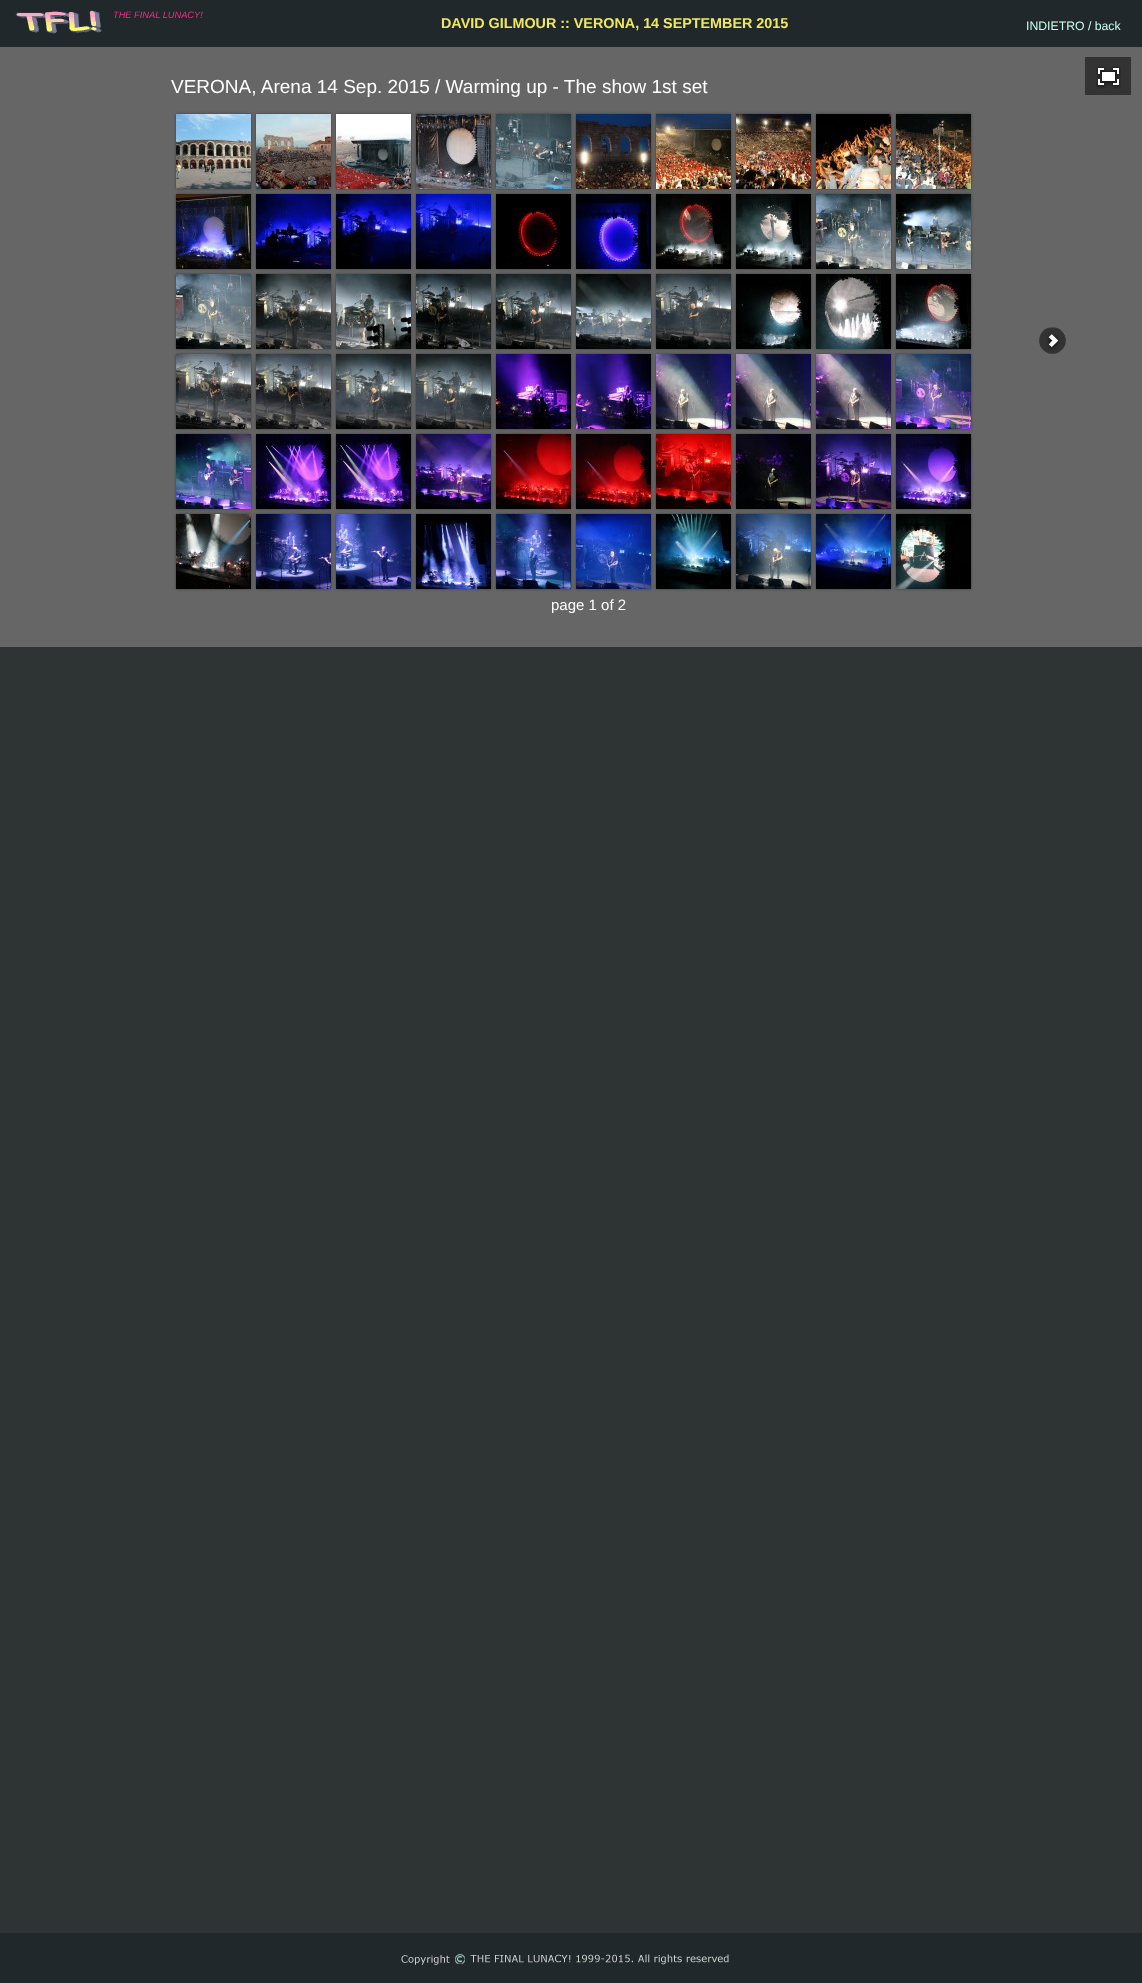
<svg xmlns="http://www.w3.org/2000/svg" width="1142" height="1983">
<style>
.a{font:italic 9.25px Liberation Sans;fill:#f42b8a}
.b{font:bold 14.35px Liberation Sans;fill:#efe85f}
.c{font:12.25px Liberation Sans;fill:#cdffec}
.d{font:19px Liberation Sans;fill:#fff}
.e{font:15px Liberation Sans;fill:#fff}
</style>
<rect width="100%" height="100%" fill="#2e3334"/>
<path fill="#20282b" d="M0 0h1142v47H0z"/>
<image href="1.png" x="15" y="10" width="87" height="24"/>
<path fill="#666" d="M0 47h1142v600H0z"/>
<path fill="#333" d="M1085 57h46v38H1085z"/>
<image href="2.png" x="1096" y="66" width="25" height="23"/>
<path fill="#00000066" filter="blur(1.5px)" d="M176 114h75v75H176z"/>
<path fill="#00000066" filter="blur(1.5px)" d="M256 114h75v75H256z"/>
<path fill="#00000066" filter="blur(1.5px)" d="M176 194h75v75H176z"/>
<path fill="#00000066" filter="blur(1.5px)" d="M256 194h75v75H256z"/>
<image href="3.png" x="176" y="114" width="75" height="75"/>
<path fill="#00000066" filter="blur(1.5px)" d="M336 114h75v75H336z"/>
<path fill="#00000066" filter="blur(1.5px)" d="M336 194h75v75H336z"/>
<image href="4.png" x="256" y="114" width="75" height="75"/>
<path fill="#00000066" filter="blur(1.5px)" d="M416 114h75v75H416z"/>
<path fill="#00000066" filter="blur(1.5px)" d="M416 194h75v75H416z"/>
<image href="5.png" x="336" y="114" width="75" height="75"/>
<path fill="#00000066" filter="blur(1.5px)" d="M496 114h75v75H496z"/>
<path fill="#00000066" filter="blur(1.5px)" d="M496 194h75v75H496z"/>
<image href="6.png" x="416" y="114" width="75" height="75"/>
<path fill="#00000066" filter="blur(1.5px)" d="M576 114h75v75H576z"/>
<path fill="#00000066" filter="blur(1.5px)" d="M576 194h75v75H576z"/>
<image href="7.png" x="496" y="114" width="75" height="75"/>
<path fill="#00000066" filter="blur(1.5px)" d="M656 114h75v75H656z"/>
<path fill="#00000066" filter="blur(1.5px)" d="M656 194h75v75H656z"/>
<image href="8.png" x="576" y="114" width="75" height="75"/>
<path fill="#00000066" filter="blur(1.5px)" d="M736 114h75v75H736z"/>
<path fill="#00000066" filter="blur(1.5px)" d="M736 194h75v75H736z"/>
<image href="9.png" x="656" y="114" width="75" height="75"/>
<path fill="#00000066" filter="blur(1.5px)" d="M816 114h75v75H816z"/>
<path fill="#00000066" filter="blur(1.5px)" d="M816 194h75v75H816z"/>
<image href="10.png" x="736" y="114" width="75" height="75"/>
<path fill="#00000066" filter="blur(1.5px)" d="M896 114h75v75H896z"/>
<path fill="#00000066" filter="blur(1.5px)" d="M896 194h75v75H896z"/>
<image href="11.png" x="816" y="114" width="75" height="75"/>
<image href="12.png" x="896" y="114" width="75" height="75"/>
<path fill="#00000066" filter="blur(1.5px)" d="M176 274h75v75H176z"/>
<path fill="#00000066" filter="blur(1.5px)" d="M256 274h75v75H256z"/>
<image href="13.png" x="176" y="194" width="75" height="75"/>
<path fill="#00000066" filter="blur(1.5px)" d="M336 274h75v75H336z"/>
<image href="14.png" x="256" y="194" width="75" height="75"/>
<path fill="#00000066" filter="blur(1.5px)" d="M416 274h75v75H416z"/>
<image href="15.png" x="336" y="194" width="75" height="75"/>
<path fill="#00000066" filter="blur(1.5px)" d="M496 274h75v75H496z"/>
<image href="16.png" x="416" y="194" width="75" height="75"/>
<path fill="#00000066" filter="blur(1.5px)" d="M576 274h75v75H576z"/>
<image href="17.png" x="496" y="194" width="75" height="75"/>
<path fill="#00000066" filter="blur(1.5px)" d="M656 274h75v75H656z"/>
<image href="18.png" x="576" y="194" width="75" height="75"/>
<path fill="#00000066" filter="blur(1.5px)" d="M736 274h75v75H736z"/>
<image href="19.png" x="656" y="194" width="75" height="75"/>
<path fill="#00000066" filter="blur(1.5px)" d="M816 274h75v75H816z"/>
<image href="20.png" x="736" y="194" width="75" height="75"/>
<path fill="#00000066" filter="blur(1.5px)" d="M896 274h75v75H896z"/>
<image href="21.png" x="816" y="194" width="75" height="75"/>
<image href="22.png" x="896" y="194" width="75" height="75"/>
<path fill="#00000066" filter="blur(1.5px)" d="M176 354h75v75H176z"/>
<path fill="#00000066" filter="blur(1.5px)" d="M256 354h75v75H256z"/>
<image href="23.png" x="176" y="274" width="75" height="75"/>
<path fill="#00000066" filter="blur(1.5px)" d="M336 354h75v75H336z"/>
<image href="24.png" x="256" y="274" width="75" height="75"/>
<path fill="#00000066" filter="blur(1.5px)" d="M416 354h75v75H416z"/>
<image href="25.png" x="336" y="274" width="75" height="75"/>
<path fill="#00000066" filter="blur(1.5px)" d="M496 354h75v75H496z"/>
<image href="26.png" x="416" y="274" width="75" height="75"/>
<path fill="#00000066" filter="blur(1.5px)" d="M576 354h75v75H576z"/>
<image href="27.png" x="496" y="274" width="75" height="75"/>
<path fill="#00000066" filter="blur(1.5px)" d="M656 354h75v75H656z"/>
<image href="28.png" x="576" y="274" width="75" height="75"/>
<path fill="#00000066" filter="blur(1.5px)" d="M736 354h75v75H736z"/>
<image href="29.png" x="656" y="274" width="75" height="75"/>
<path fill="#00000066" filter="blur(1.5px)" d="M816 354h75v75H816z"/>
<image href="30.png" x="736" y="274" width="75" height="75"/>
<path fill="#00000066" filter="blur(1.5px)" d="M896 354h75v75H896z"/>
<image href="31.png" x="816" y="274" width="75" height="75"/>
<image href="32.png" x="896" y="274" width="75" height="75"/>
<path fill="#00000066" filter="blur(1.5px)" d="M176 434h75v75H176z"/>
<path fill="#00000066" filter="blur(1.5px)" d="M256 434h75v75H256z"/>
<image href="33.png" x="176" y="354" width="75" height="75"/>
<path fill="#00000066" filter="blur(1.5px)" d="M336 434h75v75H336z"/>
<image href="34.png" x="256" y="354" width="75" height="75"/>
<path fill="#00000066" filter="blur(1.5px)" d="M416 434h75v75H416z"/>
<image href="35.png" x="336" y="354" width="75" height="75"/>
<path fill="#00000066" filter="blur(1.5px)" d="M496 434h75v75H496z"/>
<image href="36.png" x="416" y="354" width="75" height="75"/>
<path fill="#00000066" filter="blur(1.5px)" d="M576 434h75v75H576z"/>
<image href="37.png" x="496" y="354" width="75" height="75"/>
<path fill="#00000066" filter="blur(1.5px)" d="M656 434h75v75H656z"/>
<image href="38.png" x="576" y="354" width="75" height="75"/>
<path fill="#00000066" filter="blur(1.5px)" d="M736 434h75v75H736z"/>
<image href="39.png" x="656" y="354" width="75" height="75"/>
<path fill="#00000066" filter="blur(1.5px)" d="M816 434h75v75H816z"/>
<image href="40.png" x="736" y="354" width="75" height="75"/>
<path fill="#00000066" filter="blur(1.5px)" d="M896 434h75v75H896z"/>
<image href="41.png" x="816" y="354" width="75" height="75"/>
<image href="42.png" x="896" y="354" width="75" height="75"/>
<path fill="#00000066" filter="blur(1.5px)" d="M176 514h75v75H176z"/>
<path fill="#00000066" filter="blur(1.5px)" d="M256 514h75v75H256z"/>
<image href="43.png" x="176" y="434" width="75" height="75"/>
<path fill="#00000066" filter="blur(1.5px)" d="M336 514h75v75H336z"/>
<image href="44.png" x="256" y="434" width="75" height="75"/>
<path fill="#00000066" filter="blur(1.5px)" d="M416 514h75v75H416z"/>
<image href="45.png" x="336" y="434" width="75" height="75"/>
<path fill="#00000066" filter="blur(1.5px)" d="M496 514h75v75H496z"/>
<image href="46.png" x="416" y="434" width="75" height="75"/>
<path fill="#00000066" filter="blur(1.5px)" d="M576 514h75v75H576z"/>
<image href="47.png" x="496" y="434" width="75" height="75"/>
<path fill="#00000066" filter="blur(1.5px)" d="M656 514h75v75H656z"/>
<image href="48.png" x="576" y="434" width="75" height="75"/>
<path fill="#00000066" filter="blur(1.5px)" d="M736 514h75v75H736z"/>
<image href="49.png" x="656" y="434" width="75" height="75"/>
<path fill="#00000066" filter="blur(1.5px)" d="M816 514h75v75H816z"/>
<image href="50.png" x="736" y="434" width="75" height="75"/>
<path fill="#00000066" filter="blur(1.5px)" d="M896 514h75v75H896z"/>
<image href="51.png" x="816" y="434" width="75" height="75"/>
<image href="52.png" x="896" y="434" width="75" height="75"/>
<image href="53.png" x="176" y="514" width="75" height="75"/>
<image href="54.png" x="256" y="514" width="75" height="75"/>
<image href="55.png" x="336" y="514" width="75" height="75"/>
<image href="56.png" x="416" y="514" width="75" height="75"/>
<image href="57.png" x="496" y="514" width="75" height="75"/>
<image href="58.png" x="576" y="514" width="75" height="75"/>
<image href="59.png" x="656" y="514" width="75" height="75"/>
<image href="60.png" x="736" y="514" width="75" height="75"/>
<image href="61.png" x="816" y="514" width="75" height="75"/>
<image href="62.png" x="896" y="514" width="75" height="75"/>
<image href="63.png" x="1039" y="327" width="27" height="27"/>
<path fill="#20282b" d="M0 1933h1142v50H0z"/>
<image href="64.png" x="401" y="1954" width="328" height="11"/>
<text class="a" x="113" y="18">THE FINAL LUNACY!</text>
<text class="b" x="441" y="28">DAVID GILMOUR :: VERONA, 14 SEPTEMBER 2015</text>
<text class="c" x="1026" y="30">INDIETRO / back</text>
<text class="d" x="171" y="93">VERONA, Arena 14 Sep. 2015 / Warming up - The show 1st set</text>
<text class="e" x="551" y="610">page 1 of 2</text>
</svg>
